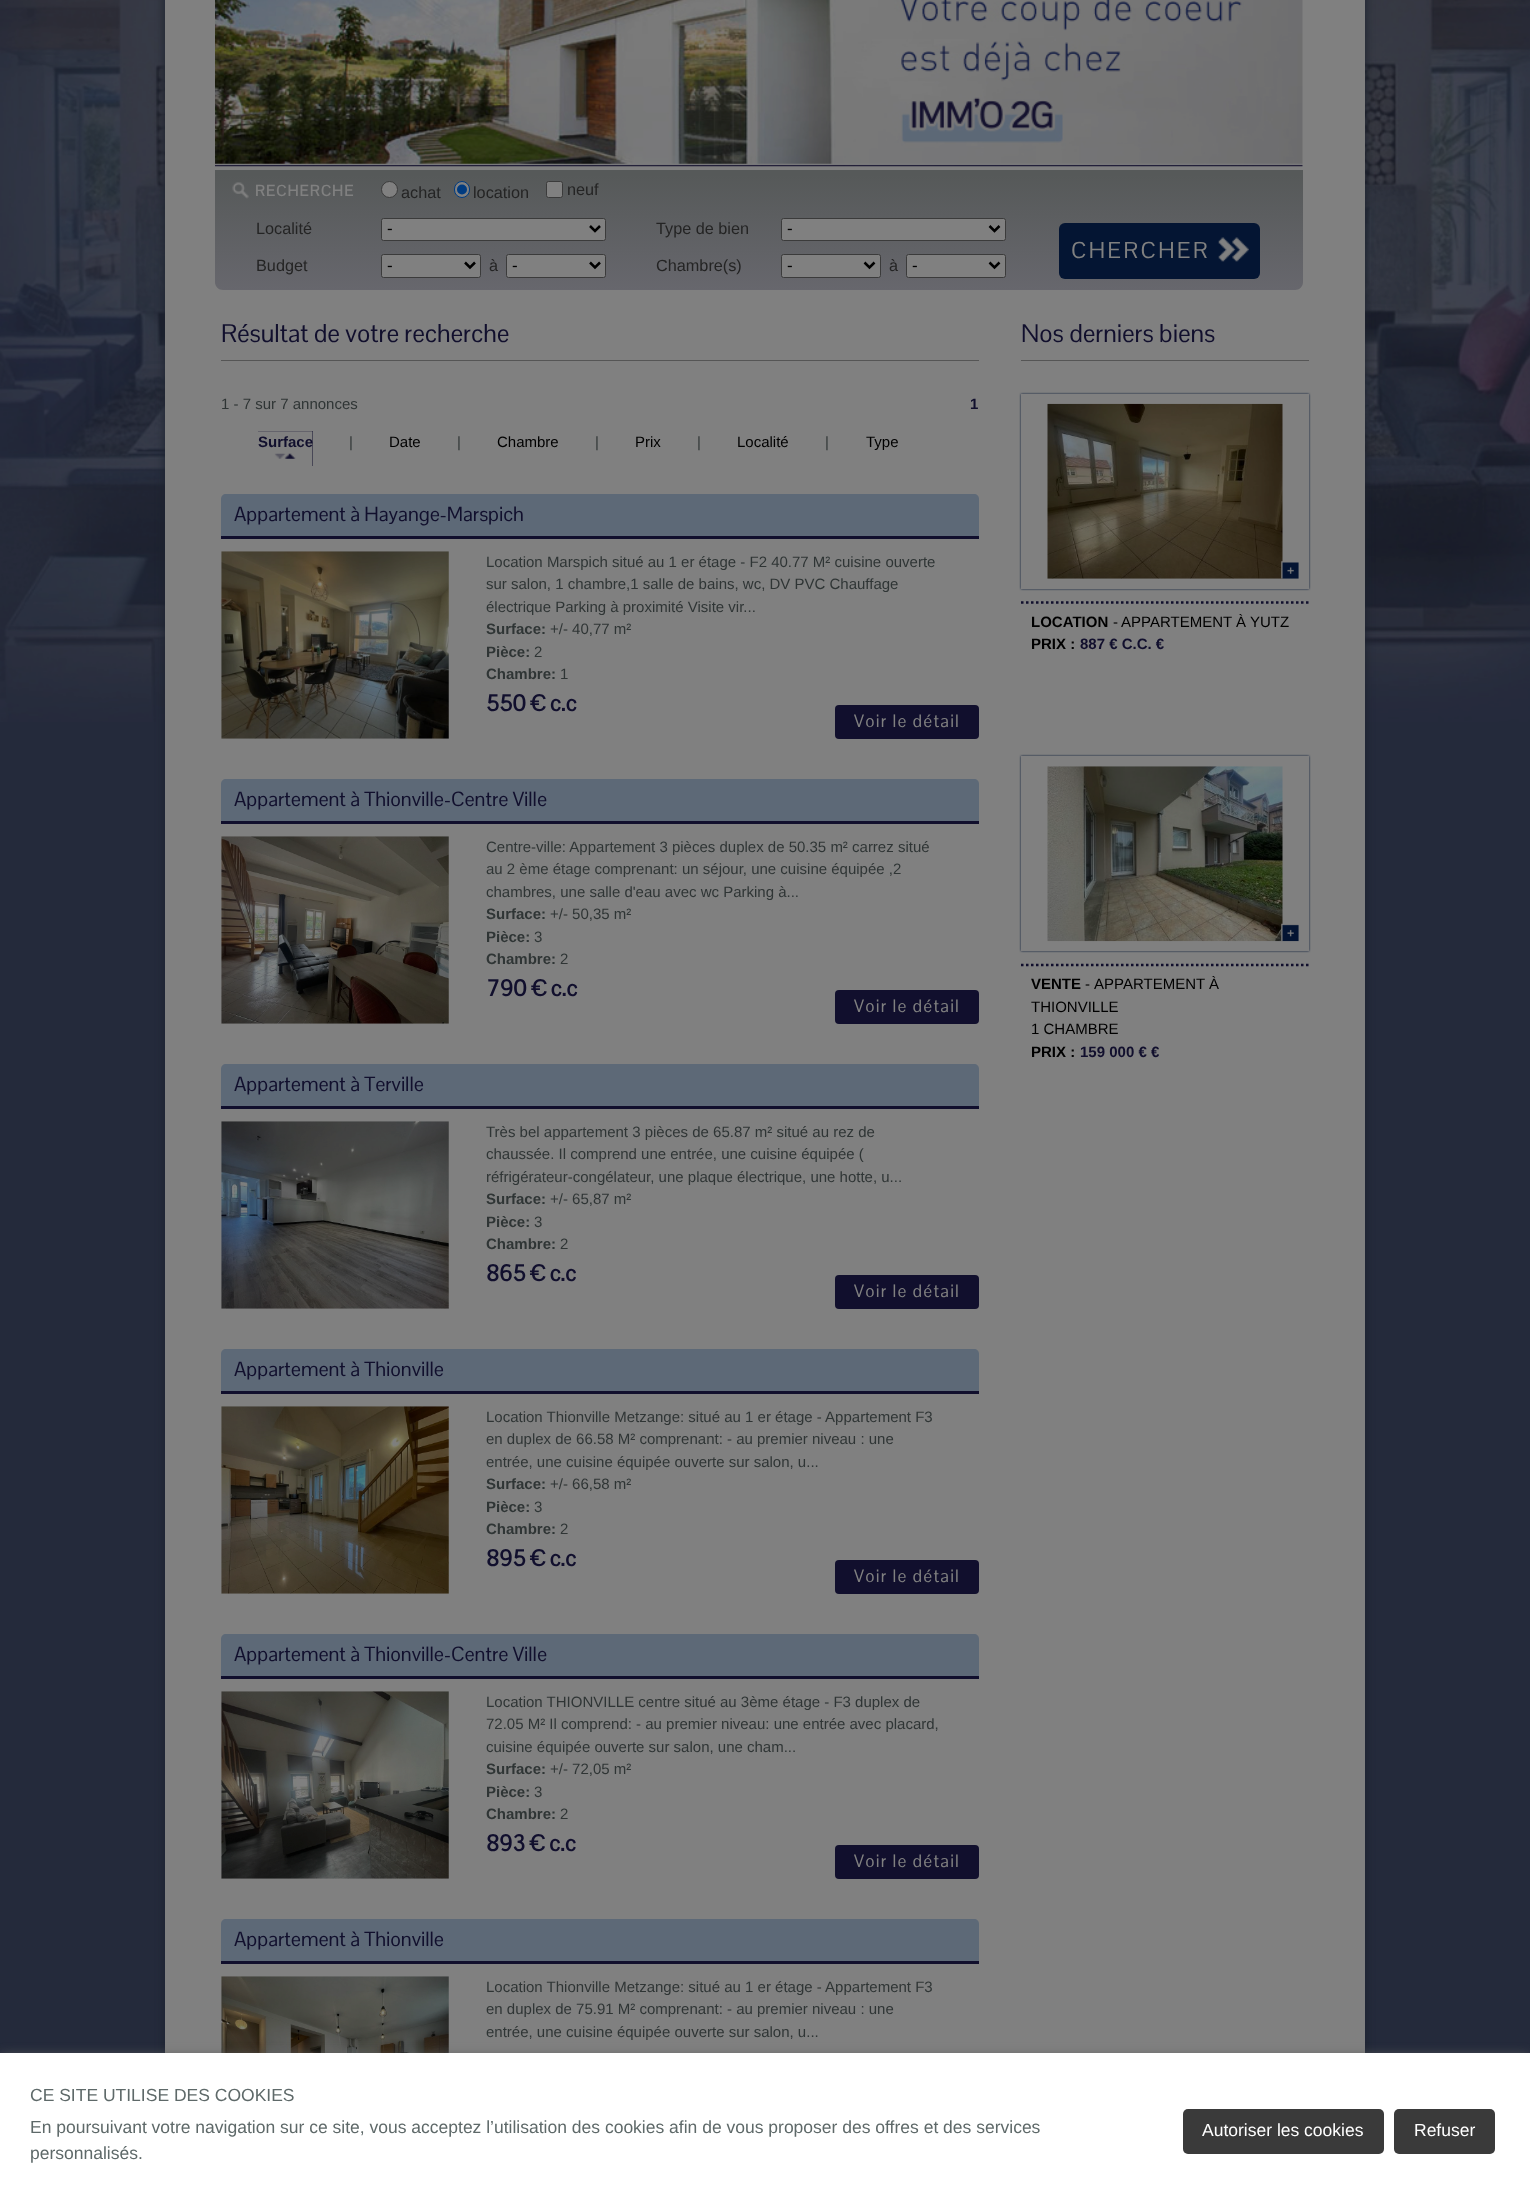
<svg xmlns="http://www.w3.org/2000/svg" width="1530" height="2208">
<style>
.a{font:16.25px Liberation Sans;fill:#242424}
.b{font:17px Liberation Sans;fill:#000}
.c{font:22.5px Pontano Sans;letter-spacing:2.5px;fill:#808080}
.d{font:bold 15px Pontano Sans;letter-spacing:1.25px;fill:#808080}
.e{font:25px Pontano Sans;fill:#110f2d}
.f{font:15px Liberation Sans;fill:#2f3535}
.g{font:bold 15px Liberation Sans;fill:#110f2d}
.h{font:15px Liberation Sans;fill:#000}
.i{font:20px Pontano Sans;fill:#110f2d}
.j{font:bold 15px Liberation Sans;fill:#2f3535}
.k{font:bold 22.5px Pontano Sans;fill:#110f2d}
.l{font:17.5px Pontano Sans;letter-spacing:1.25px;fill:#808080}
.m{font:bold 15px Liberation Sans;fill:#000}
.n{font:17.5px Liberation Sans;fill:#5e6969}
.o{font:17.5px Liberation Sans;fill:#fff}
</style>
<defs>
<linearGradient id="g1" gradientUnits="userSpaceOnUse" x1="759" y1="170" x2="759" y2="290"><stop offset="0.04" stop-color="#565959"/><stop offset="1" stop-color="#67676d"/></linearGradient>
</defs>
<rect width="100%" height="100%" fill="#242a3b"/>
<image href="1.png" x="0" y="0" width="1530" height="722"/>
<rect fill="#1a202d" filter="blur(5px)" x="165" y="-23" width="1200" height="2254" rx="8"/>
<path fill="#808080" d="M165 0h1200v2053H165z"/>
<image href="2.png" x="215" y="0" width="1088" height="167"/>
<path fill="url(#g1)" d="M215 170h1088v112c0 4.5-3.5 8-8 8h-1072c-4.5 0-8-3.5-8-8z"/>
<circle fill="#808080" stroke="#3b3b3b" cx="389.5" cy="189.5" r="8"/>
<rect fill="#808080" stroke="#003b80" x="454.5" y="181.5" width="15" height="16" rx="7.5"/>
<circle fill="#003b80" cx="462" cy="189.5" r="5"/>
<rect fill="#808080" stroke="#3b3b3b" x="546.5" y="181.5" width="16" height="16" rx="2"/>
<rect fill="#808080" stroke="#3b3b3b" x="381.5" y="218.5" width="224" height="22" rx="2"/>
<path fill="none" stroke="#000" stroke-width="2.5" d="M590 226l5 5l5-5"/>
<rect fill="#808080" stroke="#3b3b3b" x="781.5" y="218.5" width="224" height="22" rx="2"/>
<path fill="none" stroke="#000" stroke-width="2.5" d="M989.5 226l5 5l5-5"/>
<rect fill="#041533" x="1059" y="223" width="201" height="56" rx="6"/>
<image href="3.png" x="1218" y="237" width="31" height="25"/>
<rect fill="#808080" stroke="#3b3b3b" x="381.5" y="254.5" width="99" height="23" rx="2"/>
<path fill="none" stroke="#000" stroke-width="2.5" d="M465 262.5l5 5l5-5"/>
<rect fill="#808080" stroke="#3b3b3b" x="506.5" y="254.5" width="99" height="23" rx="2"/>
<path fill="none" stroke="#000" stroke-width="2.5" d="M590 262.5l5 5l5-5"/>
<rect fill="#808080" stroke="#3b3b3b" x="781.5" y="254.5" width="99" height="23" rx="2"/>
<path fill="none" stroke="#000" stroke-width="2.5" d="M864.5 262.5l5 5l5-5"/>
<rect fill="#808080" stroke="#3b3b3b" x="906.5" y="254.5" width="99" height="23" rx="2"/>
<path fill="none" stroke="#000" stroke-width="2.5" d="M989.5 262.5l5 5l5-5"/>
<image href="4.png" x="232" y="182" width="17" height="17"/>
<path fill="#555" d="M221 360h758v1H221z"/>
<path fill="#110f2d" d="M258 431h55v35H258z"/>
<image href="5.png" x="258" y="431" width="55" height="35"/>
<path fill="#5d6977" d="M226 494h748c3 0 5 2 5 5v40h-758v-40c0-3 2-5 5-5z"/>
<path fill="#110f2d" d="M221 536h758v3H221z"/>
<image href="6.png" x="221" y="551" width="228" height="188"/>
<rect fill="#110f2d" x="835" y="705" width="144" height="34" rx="4"/>
<path fill="#5d6977" d="M226 779h748c3 0 5 2 5 5v40h-758v-40c0-3 2-5 5-5z"/>
<path fill="#110f2d" d="M221 821h758v3H221z"/>
<image href="7.png" x="221" y="836" width="228" height="188"/>
<rect fill="#110f2d" x="835" y="990" width="144" height="34" rx="4"/>
<path fill="#5d6977" d="M226 1064h748c3 0 5 2 5 5v40h-758v-40c0-3 2-5 5-5z"/>
<path fill="#110f2d" d="M221 1106h758v3H221z"/>
<image href="8.png" x="221" y="1121" width="228" height="188"/>
<rect fill="#110f2d" x="835" y="1275" width="144" height="34" rx="4"/>
<path fill="#5d6977" d="M226 1349h748c3 0 5 2 5 5v40h-758v-40c0-3 2-5 5-5z"/>
<path fill="#110f2d" d="M221 1391h758v3H221z"/>
<image href="9.png" x="221" y="1406" width="228" height="188"/>
<rect fill="#110f2d" x="835" y="1560" width="144" height="34" rx="4"/>
<path fill="#5d6977" d="M226 1634h748c3 0 5 2 5 5v40h-758v-40c0-3 2-5 5-5z"/>
<path fill="#110f2d" d="M221 1676h758v3H221z"/>
<image href="10.png" x="221" y="1691" width="228" height="188"/>
<rect fill="#110f2d" x="835" y="1845" width="144" height="34" rx="4"/>
<path fill="#5d6977" d="M226 1919h748c3 0 5 2 5 5v40h-758v-40c0-3 2-5 5-5z"/>
<path fill="#110f2d" d="M221 1961h758v3H221z"/>
<image href="11.png" x="221" y="1976" width="228" height="77"/>
<path fill="#555" d="M1021 360h288v1H1021z"/>
<path fill="#041533" filter="blur(1px)" d="M1021 394h288v195H1021z"/>
<path fill="#808080" d="M1021 394h288v195H1021z"/>
<image href="12.png" x="1047" y="403" width="236" height="176"/>
<image href="13.png" x="1281" y="561" width="18" height="18"/>
<path fill="none" stroke="#110f2d" stroke-width="2.5" stroke-dasharray="2.5 2.5" d="M1021 602.5h288"/>
<path fill="#041533" filter="blur(1px)" d="M1021 756h288v195H1021z"/>
<path fill="#808080" d="M1021 756h288v195H1021z"/>
<image href="14.png" x="1047" y="766" width="236" height="176"/>
<image href="15.png" x="1281" y="923" width="18" height="19"/>
<path fill="none" stroke="#110f2d" stroke-width="2.5" stroke-dasharray="2.5 2.5" d="M1021 965h288"/>
<path fill="#606060" filter="blur(6px)" d="M0 2056h1530v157H0z"/>
<path fill="#fff" d="M0 2053h1530v155H0z"/>
<rect fill="#3a3a3a" x="1183" y="2109" width="201" height="45" rx="5"/>
<rect fill="#3a3a3a" x="1394" y="2109" width="101" height="45" rx="5"/>
<text class="a" x="401" y="198">achat</text>
<text class="a" x="473" y="198">location</text>
<text class="a" x="567" y="195">neuf</text>
<text class="a" x="256" y="234">Localité</text>
<text class="b" x="387" y="234">-</text>
<text class="a" x="656" y="234">Type de bien</text>
<text class="b" x="787" y="234">-</text>
<text class="c" x="1071" y="258">CHERCHER</text>
<text class="a" x="256" y="271">Budget</text>
<text class="b" x="387" y="271">-</text>
<text class="a" x="489" y="271">à</text>
<text class="b" x="512" y="271">-</text>
<text class="a" x="656" y="271">Chambre(s)</text>
<text class="b" x="787" y="271">-</text>
<text class="a" x="889" y="271">à</text>
<text class="b" x="912" y="271">-</text>
<text class="d" x="255" y="196">RECHERCHE</text>
<text class="e" x="221" y="342">Résultat de votre recherche</text>
<text class="f" x="221" y="409">1 - 7 sur 7 annonces</text>
<text class="g" x="970" y="409">1</text>
<text class="g" x="258" y="447">Surface</text>
<text class="f" x="349" y="447">|</text>
<text class="h" x="389" y="447">Date</text>
<text class="f" x="457" y="447">|</text>
<text class="h" x="497" y="447">Chambre</text>
<text class="f" x="595" y="447">|</text>
<text class="h" x="635" y="447">Prix</text>
<text class="f" x="697" y="447">|</text>
<text class="h" x="737" y="447">Localité</text>
<text class="f" x="825" y="447">|</text>
<text class="h" x="866" y="447">Type</text>
<text class="i" x="234" y="521">Appartement à Hayange-Marspich</text>
<text class="f" x="486" y="567">Location Marspich situé au 1 er étage - F2 40.77 M² cuisine ouverte</text>
<text class="f" x="486" y="589">sur salon, 1 chambre,1 salle de bains, wc, DV PVC Chauffage</text>
<text class="f" x="486" y="612">électrique Parking à proximité Visite vir...</text>
<text class="j" x="486" y="634">Surface:</text>
<text class="f" x="550" y="634">+/- 40,77 m²</text>
<text class="j" x="486" y="657">Pièce:</text>
<text class="f" x="534" y="657">2</text>
<text class="j" x="486" y="679">Chambre:</text>
<text class="f" x="560" y="679">1</text>
<text class="k" x="486" y="711">550 € c.c</text>
<text class="l" x="854" y="727">Voir le détail</text>
<text class="i" x="234" y="806">Appartement à Thionville-Centre Ville</text>
<text class="f" x="486" y="852">Centre-ville: Appartement 3 pièces duplex de 50.35 m² carrez situé</text>
<text class="f" x="486" y="874">au 2 ème étage comprenant: un séjour, une cuisine équipée ,2</text>
<text class="f" x="486" y="897">chambres, une salle d'eau avec wc Parking à...</text>
<text class="j" x="486" y="919">Surface:</text>
<text class="f" x="550" y="919">+/- 50,35 m²</text>
<text class="j" x="486" y="942">Pièce:</text>
<text class="f" x="534" y="942">3</text>
<text class="j" x="486" y="964">Chambre:</text>
<text class="f" x="560" y="964">2</text>
<text class="k" x="486" y="996">790 € c.c</text>
<text class="l" x="854" y="1012">Voir le détail</text>
<text class="i" x="234" y="1091">Appartement à Terville</text>
<text class="f" x="486" y="1137">Très bel appartement 3 pièces de 65.87 m² situé au rez de</text>
<text class="f" x="486" y="1159">chaussée. Il comprend une entrée, une cuisine équipée (</text>
<text class="f" x="486" y="1182">réfrigérateur-congélateur, une plaque électrique, une hotte, u...</text>
<text class="j" x="486" y="1204">Surface:</text>
<text class="f" x="550" y="1204">+/- 65,87 m²</text>
<text class="j" x="486" y="1227">Pièce:</text>
<text class="f" x="534" y="1227">3</text>
<text class="j" x="486" y="1249">Chambre:</text>
<text class="f" x="560" y="1249">2</text>
<text class="k" x="486" y="1281">865 € c.c</text>
<text class="l" x="854" y="1297">Voir le détail</text>
<text class="i" x="234" y="1376">Appartement à Thionville</text>
<text class="f" x="486" y="1422">Location Thionville Metzange: situé au 1 er étage - Appartement F3</text>
<text class="f" x="486" y="1444">en duplex de 66.58 M² comprenant: - au premier niveau : une</text>
<text class="f" x="486" y="1467">entrée, une cuisine équipée ouverte sur salon, u...</text>
<text class="j" x="486" y="1489">Surface:</text>
<text class="f" x="550" y="1489">+/- 66,58 m²</text>
<text class="j" x="486" y="1512">Pièce:</text>
<text class="f" x="534" y="1512">3</text>
<text class="j" x="486" y="1534">Chambre:</text>
<text class="f" x="560" y="1534">2</text>
<text class="k" x="486" y="1566">895 € c.c</text>
<text class="l" x="854" y="1582">Voir le détail</text>
<text class="i" x="234" y="1661">Appartement à Thionville-Centre Ville</text>
<text class="f" x="486" y="1707">Location THIONVILLE centre situé au 3ème étage - F3 duplex de</text>
<text class="f" x="486" y="1729">72.05 M² Il comprend: - au premier niveau: une entrée avec placard,</text>
<text class="f" x="486" y="1752">cuisine équipée ouverte sur salon, une cham...</text>
<text class="j" x="486" y="1774">Surface:</text>
<text class="f" x="550" y="1774">+/- 72,05 m²</text>
<text class="j" x="486" y="1797">Pièce:</text>
<text class="f" x="534" y="1797">3</text>
<text class="j" x="486" y="1819">Chambre:</text>
<text class="f" x="560" y="1819">2</text>
<text class="k" x="486" y="1851">893 € c.c</text>
<text class="l" x="854" y="1867">Voir le détail</text>
<text class="i" x="234" y="1946">Appartement à Thionville</text>
<text class="f" x="486" y="1992">Location Thionville Metzange: situé au 1 er étage - Appartement F3</text>
<text class="f" x="486" y="2014">en duplex de 75.91 M² comprenant: - au premier niveau : une</text>
<text class="f" x="486" y="2037">entrée, une cuisine équipée ouverte sur salon, u...</text>
<text class="e" x="1021" y="342">Nos derniers biens</text>
<text class="m" x="1031" y="627">LOCATION</text>
<text class="h" x="1113" y="627">-</text>
<text class="h" x="1121" y="627">APPARTEMENT À YUTZ</text>
<text class="m" x="1031" y="649">PRIX :</text>
<text class="g" x="1080" y="649">887 € C.C. €</text>
<text class="m" x="1031" y="989">VENTE</text>
<text class="h" x="1085" y="989">-</text>
<text class="h" x="1094" y="989">APPARTEMENT À</text>
<text class="h" x="1031" y="1012">THIONVILLE</text>
<text class="h" x="1031" y="1034">1 CHAMBRE</text>
<text class="m" x="1031" y="1057">PRIX :</text>
<text class="g" x="1080" y="1057">159 000 € €</text>
<text class="n" x="30" y="2101">CE SITE UTILISE DES COOKIES</text>
<text class="n" x="30" y="2133">En poursuivant votre navigation sur ce site, vous acceptez l’utilisation des cookies afin de vous proposer des offres et des services</text>
<text class="n" x="30" y="2159">personnalisés.</text>
<text class="o" x="1202" y="2136">Autoriser les cookies</text>
<text class="o" x="1414" y="2136">Refuser</text>
</svg>
